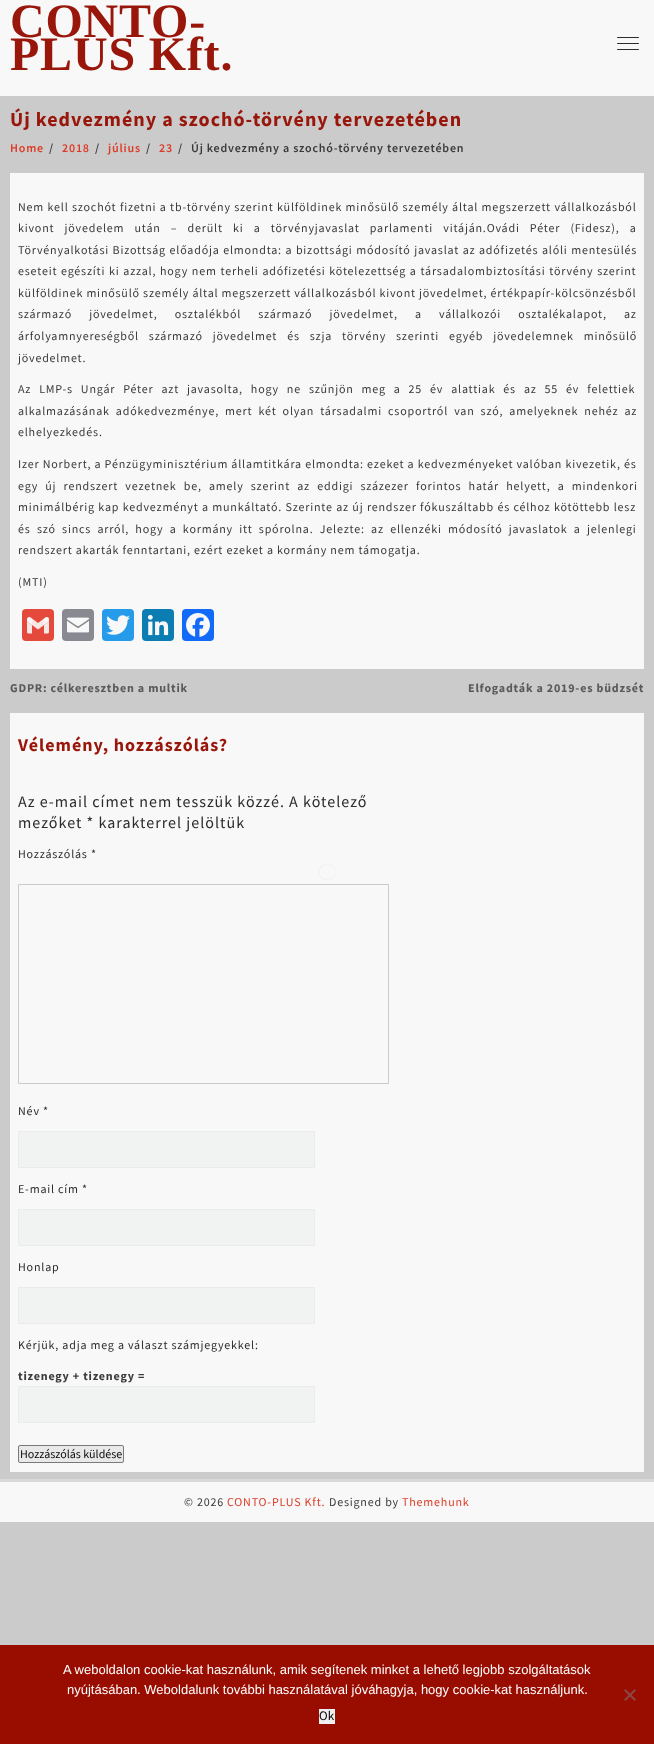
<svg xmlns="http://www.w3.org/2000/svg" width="654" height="1744">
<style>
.a{font:bold 48px Liberation Serif;letter-spacing:0.8px;fill:#99160b}
.b{font:bold 20px Source Sans Pro;letter-spacing:1px;fill:#99160b}
.c{font:600 12px Source Sans Pro;letter-spacing:0.8px;fill:#dd3b26}
.d{font:600 12px Source Sans Pro;letter-spacing:0.8px;fill:#3a3a3a}
.e{font:12px Source Sans Pro;letter-spacing:0.8px;fill:#3a3a3a}
.f{font:bold 12px Source Sans Pro;letter-spacing:0.8px;fill:#5a5a5a}
.g{font:bold 18px Source Sans Pro;letter-spacing:1px;fill:#99160b}
.h{font:16px Source Sans Pro;letter-spacing:1px;fill:#2c2c2c}
.i{font:12px Source Sans Pro;letter-spacing:0.8px;fill:#2c2c2c}
.j{font:bold 12px Source Sans Pro;letter-spacing:0.8px;fill:#3a3a3a}
.k{font:12px Source Sans Pro;fill:#0b0b0b}
.l{font:12px Source Sans Pro;letter-spacing:0.8px;fill:#dd3b26}
.m{font:13px Liberation Sans;fill:#fff}
.n{font:13px Source Sans Pro;fill:#000}
</style>
<rect width="100%" height="100%" fill="#cbcbcb"/>
<path fill="#f8f8f8" d="M0 0h654v96H0z"/>
<rect fill="#2c2c2c" x="617" y="37" width="22" height="1" rx="0.5"/>
<rect fill="#2c2c2c" x="617" y="43" width="22" height="1" rx="0.5"/>
<rect fill="#2c2c2c" x="617" y="49" width="22" height="1" rx="0.5"/>
<path fill="#f8f8f8" d="M10 173h634v496H10z"/>
<rect fill="#e5493c" x="22" y="609" width="32" height="32" rx="4"/>
<image href="1.png" x="27" y="617" width="22" height="17"/>
<rect fill="#898a91" x="62" y="609" width="32" height="32" rx="4"/>
<image href="2.png" x="67" y="617" width="22" height="16"/>
<rect fill="#269bea" x="102" y="609" width="32" height="32" rx="4"/>
<image href="3.png" x="106" y="615" width="24" height="20"/>
<rect fill="#0b7db3" x="142" y="609" width="32" height="32" rx="4"/>
<image href="4.png" x="147" y="614" width="22" height="22"/>
<rect fill="#126af8" x="182" y="609" width="32" height="32" rx="4"/>
<image href="5.png" x="186" y="613" width="24" height="24"/>
<path fill="#f8f8f8" d="M10 713h634v759H10z"/>
<path fill="none" stroke="#cbcbcb" d="M18.5 884.5h370v199H18.5z"/>
<path fill="#f1f2f2" stroke="#ebebeb" d="M18.5 1131.5h296v36H18.5z"/>
<path fill="#f1f2f2" stroke="#ebebeb" d="M18.5 1209.5h296v36H18.5z"/>
<path fill="#f1f2f2" stroke="#ebebeb" d="M18.5 1287.5h296v36H18.5z"/>
<path fill="#f1f2f2" stroke="#ebebeb" d="M18.5 1386.5h296v36H18.5z"/>
<rect fill="#e9e9e9" stroke="#797979" x="18.5" y="1445.5" width="105" height="17" rx="1.5"/>
<path fill="#d8d8d8" d="M0 1479h654v3H0z"/>
<path fill="#f8f8f8" d="M0 1482h654v40H0z"/>
<image href="6.png" x="318" y="863" width="17" height="17"/>
<path fill="#990c00" d="M0 1645h654v99H0z"/>
<path fill="#8d4640" d="M634.5 1689l1.5 1.5l-10.5 10.5l-1.5-1.5z"/>
<path fill="#8d4640" d="M624 1690.5l1.5-1.5l10.5 10.5l-1.5 1.5z"/>
<path fill="#efefef" d="M319 1709h16v15H319z"/>
<text class="a" x="10" y="37">CONTO-</text>
<text class="a" x="10" y="70">PLUS Kft.</text>
<text class="b" x="10" y="126">Új kedvezmény a szochó-törvény tervezetében</text>
<text class="c" x="10" y="152">Home</text>
<text class="d" x="49" y="152">/</text>
<text class="c" x="62" y="152">2018</text>
<text class="d" x="95" y="152">/</text>
<text class="c" x="108" y="152">július</text>
<text class="d" x="146" y="152">/</text>
<text class="c" x="159" y="152">23</text>
<text class="d" x="178" y="152">/</text>
<text class="d" x="191" y="152">Új kedvezmény a szochó-törvény tervezetében</text>
<text class="e" x="18" y="211" word-spacing="0.25">Nem kell szochót fizetni a tb-törvény szerint külföldinek minősülő személy által megszerzett vállalkozásból</text>
<text class="e" x="18" y="232" word-spacing="7">kivont jövedelem után – derült ki a törvényjavaslat parlamenti vitáján.Ovádi Péter (Fidesz), a</text>
<text class="e" x="18" y="254" word-spacing="0.4">Törvényalkotási Bizottság előadója elmondta: a bizottsági módosító javaslat az adófizetés alóli mentesülés</text>
<text class="e" x="18" y="275" word-spacing="0.6">eseteit egészíti ki azzal, hogy nem terheli adófizetési kötelezettség a társadalombiztosítási törvény szerint</text>
<text class="e" x="18" y="297">külföldinek minősülő személy által megszerzett vállalkozásból kivont jövedelmet, értékpapír-kölcsönzésből</text>
<text class="e" x="18" y="318" word-spacing="14">származó jövedelmet, osztalékból származó jövedelmet, a vállalkozói osztalékalapot, az</text>
<text class="e" x="18" y="340" word-spacing="6.75">árfolyamnyereségből származó jövedelmet és szja törvény szerinti egyéb jövedelemnek minősülő</text>
<text class="e" x="18" y="362">jövedelmet.</text>
<text class="e" x="18" y="393" word-spacing="4.75">Az LMP-s Ungár Péter azt javasolta, hogy ne szűnjön meg a 25 év alattiak és az 55 év felettiek</text>
<text class="e" x="18" y="415" word-spacing="2.9">alkalmazásának adókedvezménye, mert két olyan társadalmi csoportról van szó, amelyeknek nehéz az</text>
<text class="e" x="18" y="436">elhelyezkedés.</text>
<text class="e" x="18" y="468">Izer Norbert, a Pénzügyminisztérium államtitkára elmondta: ezeket a kedvezményeket valóban kivezetik, és</text>
<text class="e" x="18" y="490" word-spacing="4">egy új rendszert vezetnek be, amely szerint az eddigi százezer forintos határ helyett, a mindenkori</text>
<text class="e" x="18" y="511" word-spacing="0.25">minimálbérig kap kedvezményt a munkáltató. Szerinte az új rendszer fókuszáltabb és célhoz kötöttebb lesz</text>
<text class="e" x="18" y="533" word-spacing="3.1">és szó sincs arról, hogy a kormány itt spórolna. Jelezte: az ellenzéki módosító javaslatok a jelenlegi</text>
<text class="e" x="18" y="554">rendszert akarták fenntartani, ezért ezeket a kormány nem támogatja.</text>
<text class="e" x="18" y="586">(MTI)</text>
<text class="f" x="10" y="692">GDPR: célkeresztben a multik</text>
<text class="f" x="468" y="692">Elfogadták a 2019-es büdzsét</text>
<text class="g" x="18" y="751">Vélemény, hozzászólás?</text>
<text class="h" x="18" y="807">Az e-mail címet nem tesszük közzé. A kötelező</text>
<text class="h" x="18" y="828">mezőket * karakterrel jelöltük</text>
<text class="i" x="18" y="858">Hozzászólás *</text>
<text class="i" x="18" y="1115">Név *</text>
<text class="i" x="18" y="1193">E-mail cím *</text>
<text class="i" x="18" y="1271">Honlap</text>
<text class="i" x="18" y="1349">Kérjük, adja meg a választ számjegyekkel:</text>
<text class="j" x="18" y="1380">tizenegy + tizenegy =</text>
<text class="k" x="20" y="1458">Hozzászólás küldése</text>
<text class="e" x="184" y="1506">© 2026</text>
<text class="l" x="227" y="1506">CONTO-PLUS Kft.</text>
<text class="e" x="329" y="1506">Designed by</text>
<text class="l" x="402" y="1506">Themehunk</text>
<text class="m" x="63" y="1674">A weboldalon cookie-kat használunk, amik segítenek minket a lehető legjobb szolgáltatások</text>
<text class="m" x="67" y="1694">nyújtásában. Weboldalunk további használatával jóváhagyja, hogy cookie-kat használjunk.</text>
<text class="n" x="319" y="1720">Ok</text>
</svg>
